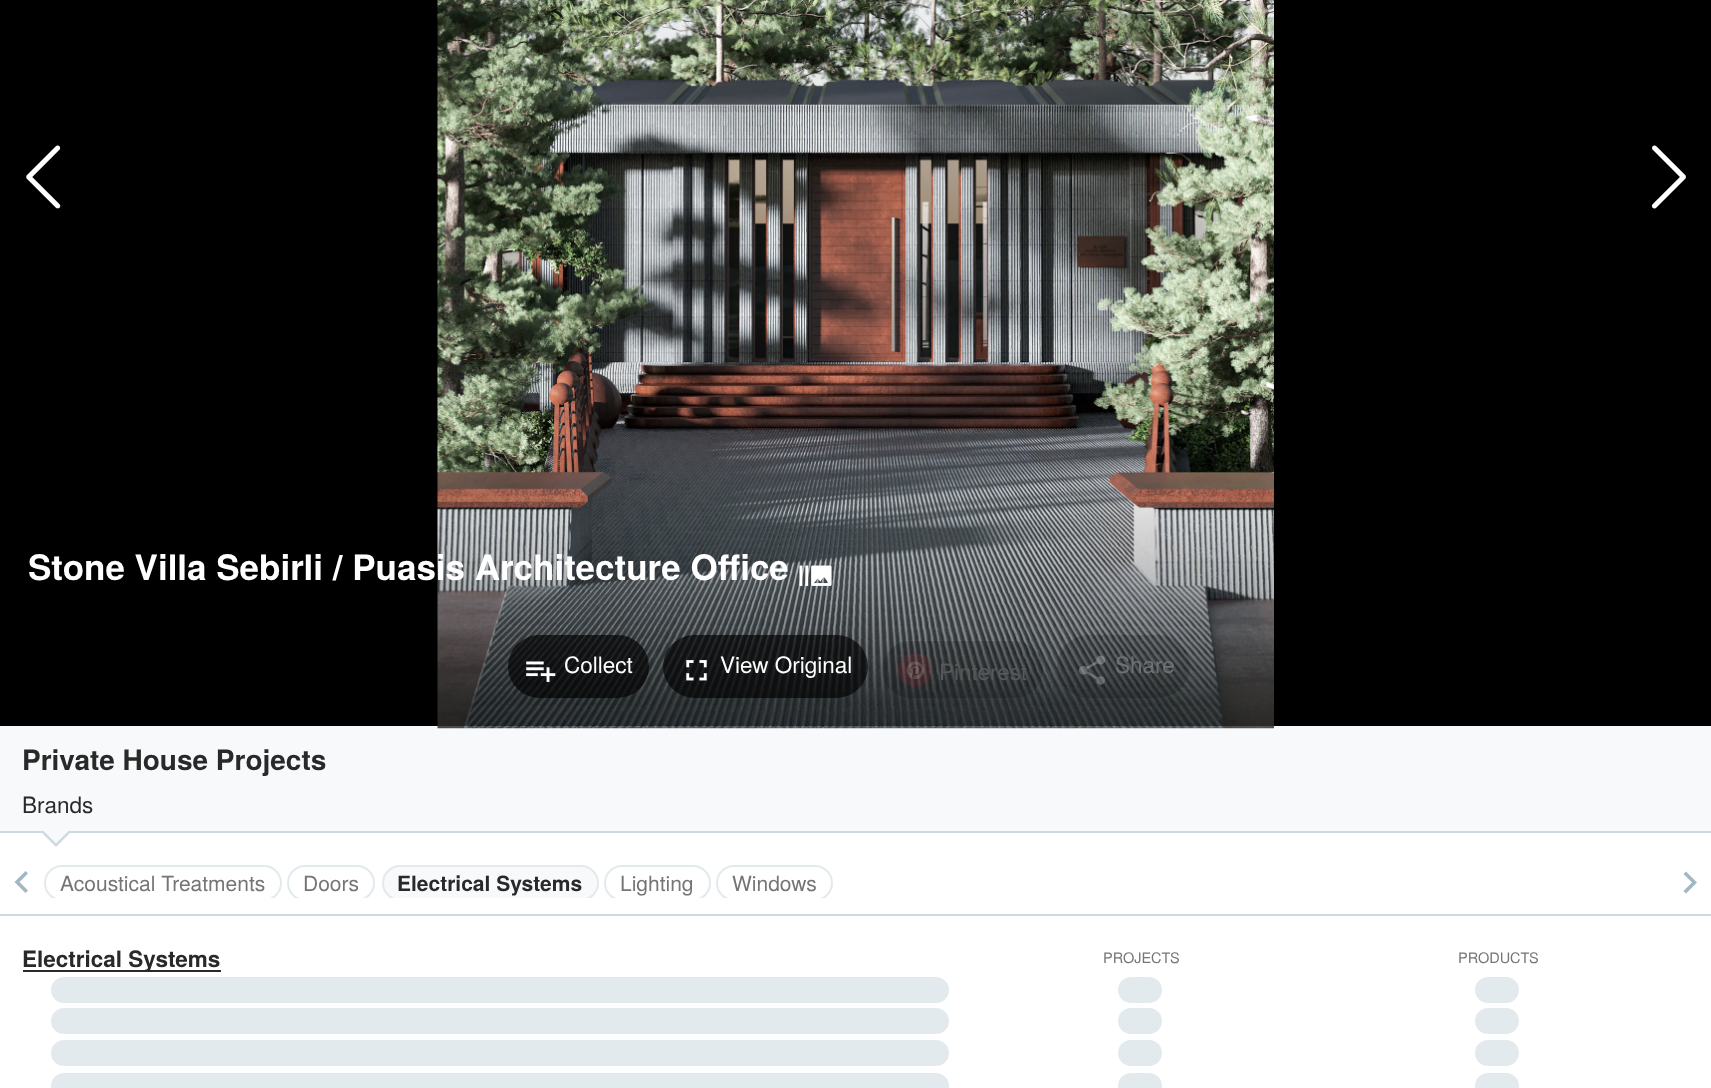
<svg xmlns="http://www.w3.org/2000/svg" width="1711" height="1088">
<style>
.a{font:bold 35px TeX Gyre Heros;fill:#fff}
.b{font:22.5px TeX Gyre Heros;fill:#fff}
.c{font:22.5px TeX Gyre Heros;fill:#55595a}
.d{font:22.5px TeX Gyre Heros;fill:#6f7274}
.e{font:bold 28px TeX Gyre Heros;fill:#292929}
.f{font:22.5px TeX Gyre Heros;fill:#292929}
.g{font:21px TeX Gyre Heros;fill:#757575}
.h{font:bold 21px TeX Gyre Heros;fill:#292929}
.i{font:bold 22.5px TeX Gyre Heros;fill:#292929}
.j{font:14.5px TeX Gyre Heros;fill:#757575}
</style>
<defs>
<linearGradient id="g1" gradientUnits="userSpaceOnUse" x1="856" y1="726" x2="856" y2="438"><stop offset="0" stop-color="#000" stop-opacity="0.5"/><stop offset="1" stop-color="#000" stop-opacity="0"/></linearGradient>
<clipPath id="clip1"><path d="M44 854h1624v44H44z"/></clipPath>
</defs>
<rect width="100%" height="100%" fill="#fff"/>
<path fill="#000" d="M0 0h1711v726H0z"/>
<path fill="#f7f9fa" d="M0 726h1711v105H0z"/>
<image href="1.png" x="437" y="0" width="837" height="729"/>
<image href="2.png" x="26" y="145" width="35" height="64"/>
<image href="3.png" x="1651" y="145" width="35" height="64"/>
<path fill="url(#g1)" d="M437 450h837v276H437z"/>
<image href="4.png" x="799" y="565" width="33" height="21"/>
<rect fill="#000000a6" x="508" y="635" width="141" height="63" rx="31.5"/>
<image href="5.png" x="526" y="661" width="30" height="21"/>
<rect fill="#000000a6" x="663" y="635" width="205" height="63" rx="31.5"/>
<image href="6.png" x="686" y="660" width="21" height="21"/>
<rect fill="#00000029" x="882" y="641" width="161" height="57" rx="28.5"/>
<image href="7.png" x="898" y="653" width="34" height="34"/>
<rect fill="#00000029" x="1057" y="635" width="133" height="63" rx="31.5"/>
<image href="8.png" x="1078" y="655" width="27" height="30"/>
<path fill="#ced9df" d="M0 831h1711v2H0z"/>
<path fill="#ced9df" d="M40 831h32l-16 16z"/>
<path fill="#f7f9fa" d="M42 829.5h28l-14 14z"/>
<path fill="#a2b7c3" d="M28 890.5l-2.5 2.5l-11-11l11-11l2.5 2.5l-8.5 8.5z"/>
<g clip-path="url(#clip1)">
<rect fill="none" stroke="#e3eaed" stroke-width="2" x="45" y="866" width="236" height="34" rx="17"/>
<rect fill="none" stroke="#e3eaed" stroke-width="2" x="288" y="866" width="86" height="34" rx="17"/>
<rect fill="#f7f9fa" stroke="#e3eaed" stroke-width="2" x="383" y="866" width="215" height="34" rx="17"/>
<rect fill="none" stroke="#e3eaed" stroke-width="2" x="605" y="866" width="105" height="34" rx="17"/>
<rect fill="none" stroke="#e3eaed" stroke-width="2" x="717" y="866" width="115" height="34" rx="17"/>
</g>
<path fill="#a2b7c3" d="M1683.5 891l8.5-8.5l-8.5-8.5l2.5-2.5l11 11l-11 11z"/>
<path fill="#ced9df" d="M0 914h1711v2H0z"/>
<path fill="#292929" d="M23 970h198v2H23z"/>
<rect fill="#e3eaed" x="51" y="977" width="898" height="26" rx="13"/>
<rect fill="#e3eaed" x="1118" y="977" width="44" height="26" rx="13"/>
<rect fill="#e3eaed" x="1475" y="977" width="44" height="26" rx="13"/>
<rect fill="#e3eaed" x="51" y="1008" width="898" height="26" rx="13"/>
<rect fill="#e3eaed" x="1118" y="1008" width="44" height="26" rx="13"/>
<rect fill="#e3eaed" x="1475" y="1008" width="44" height="26" rx="13"/>
<rect fill="#e3eaed" x="51" y="1040" width="898" height="26" rx="13"/>
<rect fill="#e3eaed" x="1118" y="1040" width="44" height="26" rx="13"/>
<rect fill="#e3eaed" x="1475" y="1040" width="44" height="26" rx="13"/>
<rect fill="#e3eaed" x="51" y="1073" width="898" height="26" rx="13"/>
<rect fill="#e3eaed" x="1118" y="1073" width="44" height="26" rx="13"/>
<rect fill="#e3eaed" x="1475" y="1073" width="44" height="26" rx="13"/>
<text class="a" x="28" y="580">Stone Villa Sebirli / Puasis Architecture Office</text>
<text class="b" x="564" y="673">Collect</text>
<text class="b" x="720" y="673">View Original</text>
<text class="c" x="939" y="680">Pinterest</text>
<text class="d" x="1115" y="673">Share</text>
<text class="e" x="22" y="770">Private House Projects</text>
<text class="f" x="22" y="813">Brands</text>
<text class="g" x="60" y="891">Acoustical Treatments</text>
<text class="g" x="303" y="891">Doors</text>
<text class="h" x="397" y="891">Electrical Systems</text>
<text class="g" x="620" y="891">Lighting</text>
<text class="g" x="732" y="891">Windows</text>
<text class="i" x="22" y="967">Electrical Systems</text>
<text class="j" x="1103" y="963">PROJECTS</text>
<text class="j" x="1458" y="963">PRODUCTS</text>
</svg>
